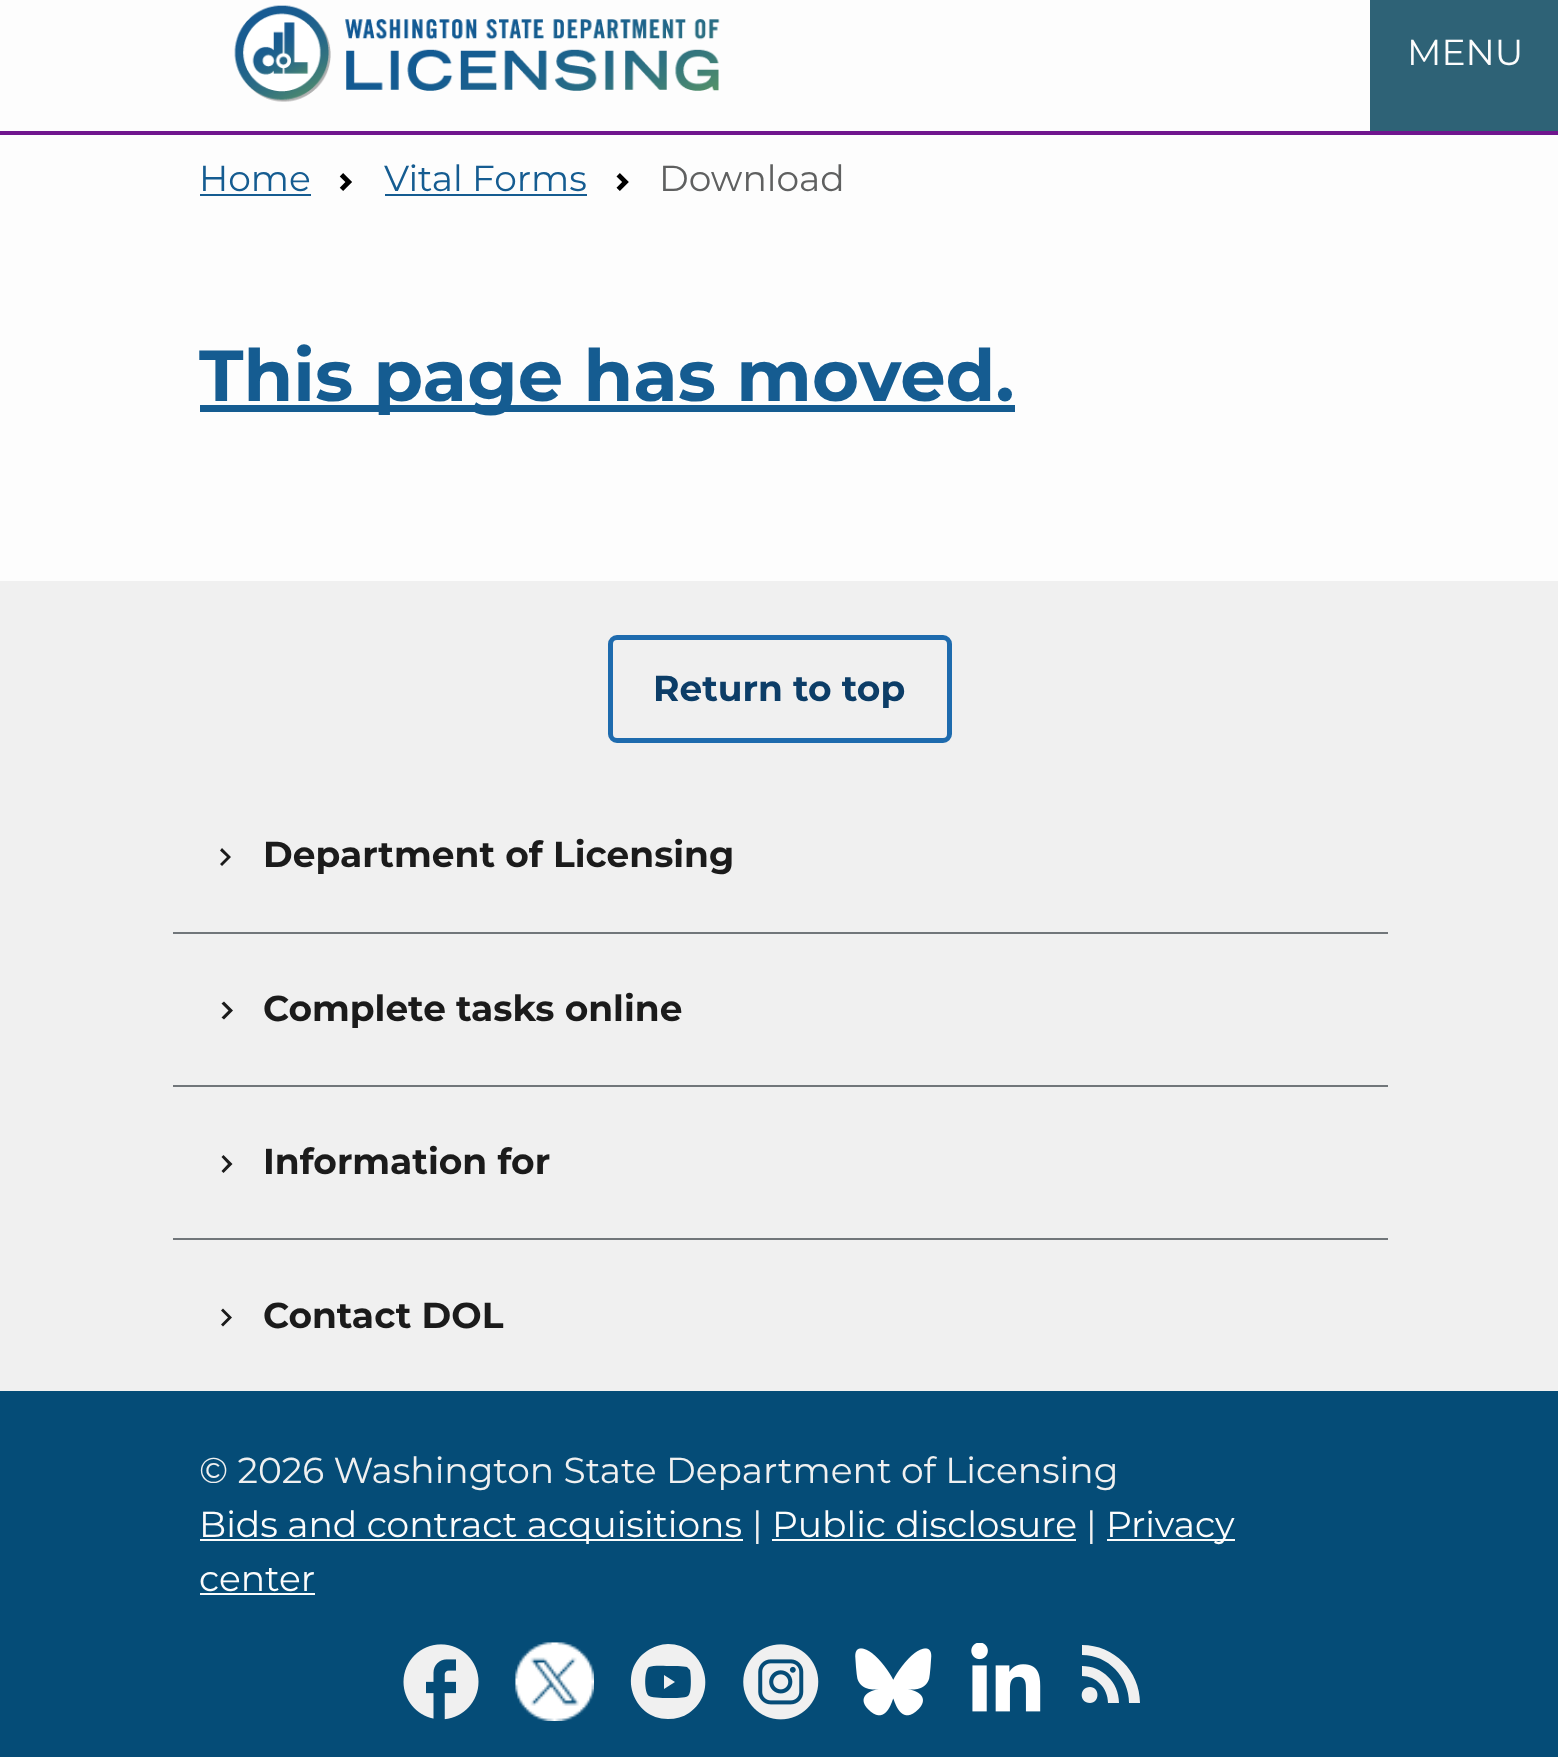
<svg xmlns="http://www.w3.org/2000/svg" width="1558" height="1757">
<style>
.a{font:36px Montserrat;fill:#fcfcfc}
.b{font:36px Montserrat;fill:#155c91}
.c{font:36px Montserrat;fill:#5f6060}
.d{font:bold 72px Montserrat;fill:#155c91}
.e{font:bold 36px Montserrat;fill:#0c3d67}
.f{font:bold 36px Montserrat;fill:#1b1b1b}
.g{font:36px Montserrat;fill:#f0f0f0}
</style>
<rect width="100%" height="100%" fill="#fdfdfd"/>
<image href="1.png" x="234" y="5" width="486" height="97"/>
<path fill="#2e6276" d="M1370 0h188v131H1370z"/>
<path fill="#70168e" d="M0 131h1558v4H0z"/>
<path fill="#155c91" d="M200 194h111v2H200z"/>
<image href="2.png" x="339" y="173" width="13" height="18"/>
<path fill="#155c91" d="M385 194h202v2H385z"/>
<image href="3.png" x="616" y="173" width="13" height="18"/>
<path fill="#155c91" d="M200 405h815v7H200z"/>
<path fill="#054c77" d="M0 1391h1558v366H0z"/>
<path fill="#f0f0f0" d="M0 581h1558v810H0z"/>
<rect fill="none" stroke="#1e6bae" stroke-width="5" x="610.5" y="637.5" width="339" height="103" rx="6.5"/>
<path fill="#71767a" d="M173 932h1215v2H173z"/>
<path fill="#1b1b1b" d="M220 850.5l2-2.5l9 9l-9 9l-2-2l7-7z"/>
<path fill="#71767a" d="M173 1085h1215v2H173z"/>
<path fill="#1b1b1b" d="M221.5 1003.5l2.5-2l9 9l-9 9l-2.5-2l7-7z"/>
<path fill="#71767a" d="M173 1238h1215v2H173z"/>
<path fill="#1b1b1b" d="M221.5 1157l2-2l9 9l-9 9l-2-2l6.5-7z"/>
<path fill="#1b1b1b" d="M221 1310.5l2-2l9 9l-9 9l-2-2l7-7z"/>
<path fill="#fcfcfc" d="M200 1539h543v2H200z"/>
<path fill="#fcfcfc" d="M772 1539h304v2H772z"/>
<path fill="#fcfcfc" d="M1107 1539h128v2H1107z"/>
<path fill="#fcfcfc" d="M200 1593h115v2H200z"/>
<image href="4.png" x="403" y="1644" width="76" height="76"/>
<image href="5.png" x="515" y="1642" width="79" height="79"/>
<path fill="#f0f0f0" fill-rule="evenodd" d="M668 1644c36 0 52 48 21 69c-6 4-13 6-21 6c-36 0-51-48-21-68c6-4 14-7 21-7zm3 22c-4 0-18-1-22 1c-5 3-5 26 0 29c4 2 17 2 21 2c5 0 15 0 18-2c4-3 3-21 2-26l-3-3c-3-1-15-1-19-1zm-7 9l11 7l-11 7z"/>
<image href="6.png" x="743" y="1644" width="76" height="76"/>
<image href="7.png" x="855" y="1648" width="77" height="68"/>
<image href="8.png" x="971" y="1643" width="70" height="69"/>
<path fill="#f0f0f0" fill-rule="evenodd" d="M1082 1645c32 0 58 26 58 58h-11c0-26-21-48-47-48zm0 21c20 0 37 16 37 37h-11c0-15-12-27-26-27zm8 21c10 0 10 16 0 16c-11 0-11-16 0-16z"/>
<text class="a" x="1407" y="65">MENU</text>
<text class="b" x="199" y="191">Home</text>
<text class="b" x="384" y="191">Vital Forms</text>
<text class="c" x="659" y="191">Download</text>
<text class="d" x="199" y="401">This page has moved.</text>
<text class="e" x="653" y="701">Return to top</text>
<text class="f" x="263" y="867">Department of Licensing</text>
<text class="f" x="263" y="1021">Complete tasks online</text>
<text class="f" x="263" y="1174">Information for</text>
<text class="f" x="263" y="1328">Contact DOL</text>
<text class="g" x="199" y="1483">© 2026 Washington State Department of Licensing</text>
<text class="a" x="199" y="1537">Bids and contract acquisitions</text>
<text class="g" x="752" y="1537">|</text>
<text class="a" x="772" y="1537">Public disclosure</text>
<text class="g" x="1086" y="1537">|</text>
<text class="a" x="1106" y="1537">Privacy</text>
<text class="a" x="199" y="1591">center</text>
</svg>
